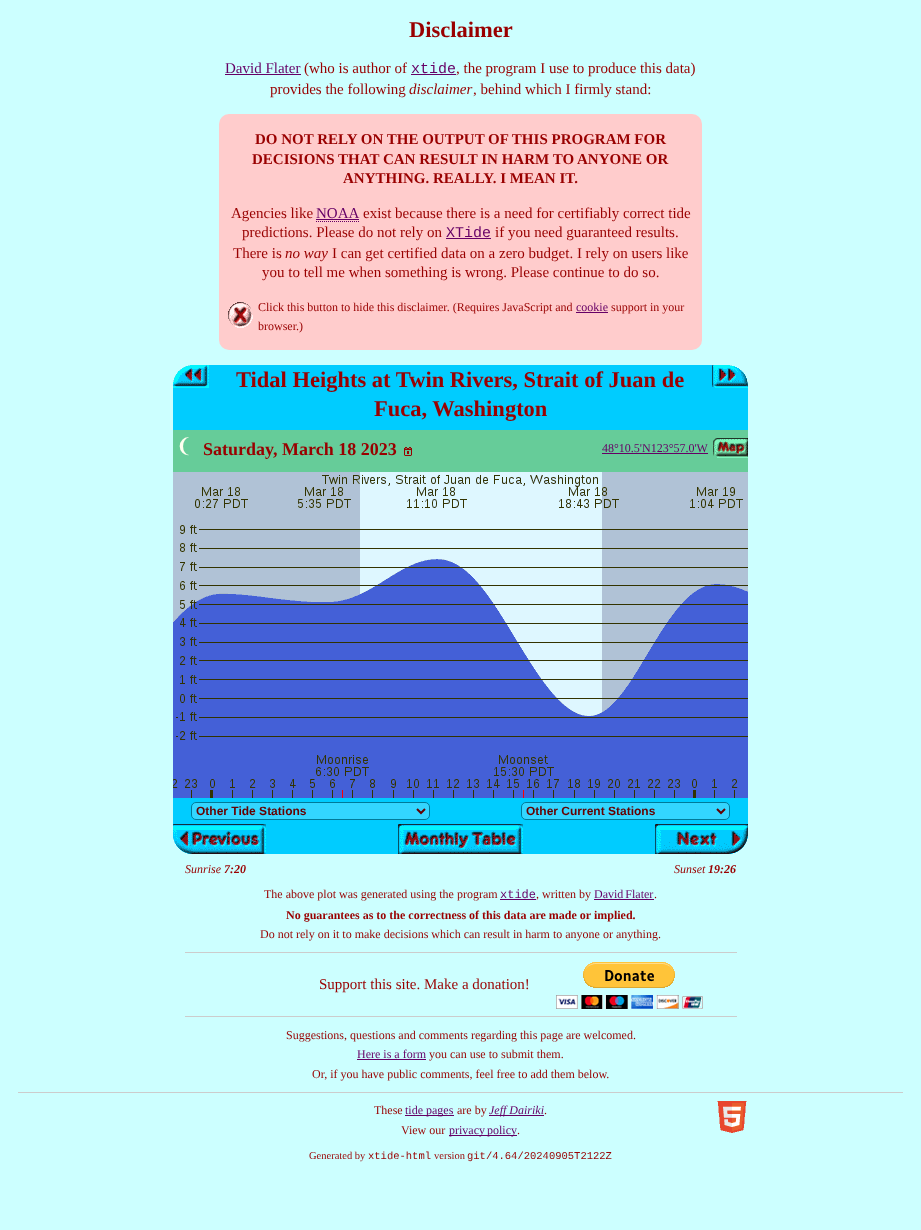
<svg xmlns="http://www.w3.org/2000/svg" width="921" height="1230">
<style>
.a{font:bold 22.5px Liberation Serif;fill:#900}
.b{font:15px Liberation Serif;fill:#606}
.c{font:15px Liberation Serif;fill:#900}
.d{font:15px Liberation Mono;fill:#606}
.e{font:italic 15px Liberation Serif;fill:#900}
.f{font:bold 15px Liberation Serif;fill:#900}
.g{font:12px Liberation Serif;fill:#900}
.h{font:12px Liberation Serif;fill:#606}
.i{font:bold 21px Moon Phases;fill:#fffff0}
.j{font:bold 18px Liberation Serif;fill:#900}
.k{font:bold 12px Liberation Sans;fill:#600}
.l{font:italic 12px Liberation Serif;fill:#900}
.m{font:italic bold 12px Liberation Serif;fill:#900}
.n{font:12px Liberation Mono;fill:#606}
.o{font:bold 12px Liberation Serif;fill:#900}
.p{font:italic 12px Liberation Serif;fill:#606}
.q{font:10.5px Liberation Serif;fill:#900}
.r{font:10.5px Liberation Mono;fill:#900}
</style>
<rect width="100%" height="100%" fill="#cff"/>
<path fill="#606" d="M225 74h76v1H225z"/>
<path fill="#606" d="M411 74h45v1H411z"/>
<rect fill="#fcc" x="219" y="114" width="483" height="236" rx="10"/>
<path fill="none" stroke="#606" stroke-dasharray="1 1" d="M316 221.5h43"/>
<path fill="#606" d="M316 219h43v1H316z"/>
<path fill="#606" d="M446 238h45v1H446z"/>
<image href="1.png" x="228" y="302" width="25" height="26"/>
<path fill="#606" d="M576 312h32v1H576z"/>
<path fill="#0cf" d="M173 365h575v489H173z"/>
<image href="2.png" x="173" y="365" width="36" height="23"/>
<image href="3.png" x="712" y="365" width="36" height="23"/>
<path fill="#6c9" d="M173 430h575v42H173z"/>
<image href="4.png" x="404" y="447" width="8" height="9"/>
<path fill="#606" d="M602 453h106v1H602z"/>
<image href="5.png" x="713" y="438" width="35" height="20"/>
<image href="6.png" x="173" y="472" width="575" height="326"/>
<rect fill="#33d6ff" stroke="#007a99" x="191.5" y="802.5" width="238" height="17" rx="4.5"/>
<path fill="none" stroke="#600" stroke-width="2" d="M417 809l4 4l4-4"/>
<rect fill="#33d6ff" stroke="#007a99" x="521.5" y="802.5" width="208" height="17" rx="4.5"/>
<path fill="none" stroke="#600" stroke-width="2" d="M717 809l4 4l4-4"/>
<image href="7.png" x="173" y="824" width="93" height="30"/>
<image href="8.png" x="398" y="824" width="125" height="30"/>
<image href="9.png" x="655" y="824" width="93" height="30"/>
<path fill="#606" d="M500 899h36v1H500z"/>
<path fill="#606" d="M594 899h60v1H594z"/>
<path fill="#ccc" d="M185 952h552v1H185z"/>
<image href="10.png" x="556" y="962" width="147" height="47"/>
<path fill="#ccc" d="M185 1016h552v1H185z"/>
<path fill="#606" d="M357 1059h69v1H357z"/>
<path fill="#ccc" d="M18 1092h885v1H18z"/>
<path fill="#606" d="M405 1115h49v1H405z"/>
<path fill="#606" d="M489 1115h55v1H489z"/>
<image href="11.png" x="717" y="1101" width="30" height="32"/>
<path fill="#606" d="M449 1135h68v1H449z"/>
<text class="a" x="409" y="37">Disclaimer</text>
<text class="b" x="225" y="73">David Flater</text>
<text class="c" x="304" y="73">(who is author of</text>
<text class="d" x="411" y="73">xtide</text>
<text class="c" x="456" y="73">, the program I use to produce this data)</text>
<text class="c" x="270" y="94">provides the following</text>
<text class="e" x="409" y="94">disclaimer</text>
<text class="c" x="473" y="94">, behind which I firmly stand:</text>
<text class="f" x="255" y="144">DO NOT RELY ON THE OUTPUT OF THIS PROGRAM FOR</text>
<text class="f" x="252" y="164">DECISIONS THAT CAN RESULT IN HARM TO ANYONE OR</text>
<text class="f" x="343" y="183">ANYTHING. REALLY. I MEAN IT.</text>
<text class="c" x="231" y="218">Agencies like</text>
<text class="b" x="316" y="218">NOAA</text>
<text class="c" x="363" y="218">exist because there is a need for certifiably correct tide</text>
<text class="c" x="242" y="237">predictions. Please do not rely on</text>
<text class="d" x="446" y="237">XTide</text>
<text class="c" x="495" y="237">if you need guaranteed results.</text>
<text class="c" x="233" y="258">There is</text>
<text class="e" x="285" y="258">no way</text>
<text class="c" x="332" y="258">I can get certified data on a zero budget. I rely on users like</text>
<text class="c" x="262" y="277">you to tell me when something is wrong. Please continue to do so.</text>
<text class="g" x="258" y="311">Click this button to hide this disclaimer. (Requires JavaScript and</text>
<text class="h" x="576" y="311">cookie</text>
<text class="g" x="611" y="311">support in your</text>
<text class="g" x="258" y="330">browser.)</text>
<text class="a" x="236" y="387">Tidal Heights at Twin Rivers, Strait of Juan de</text>
<text class="a" x="374" y="416">Fuca, Washington</text>
<text class="i" x="178" y="457">x</text>
<text class="j" x="203" y="455">Saturday, March 18 2023</text>
<text class="h" x="602" y="452">48°10.5'N123°57.0'W</text>
<text class="k" x="196" y="815">Other Tide Stations</text>
<text class="k" x="526" y="815">Other Current Stations</text>
<text class="l" x="185" y="873">Sunrise</text>
<text class="m" x="224" y="873">7:20</text>
<text class="l" x="674" y="873">Sunset</text>
<text class="m" x="708" y="873">19:26</text>
<text class="g" x="264" y="898">The above plot was generated using the program</text>
<text class="n" x="500" y="898">xtide</text>
<text class="g" x="536" y="898">, written by</text>
<text class="h" x="594" y="898" word-spacing="-1">David Flater</text>
<text class="g" x="654" y="898">.</text>
<text class="o" x="286" y="919">No guarantees as to the correctness of this data are made or implied.</text>
<text class="g" x="260" y="938">Do not rely on it to make decisions which can result in harm to anyone or anything.</text>
<text class="c" x="319" y="989">Support this site. Make a donation!</text>
<text class="g" x="286" y="1039">Suggestions, questions and comments regarding this page are welcomed.</text>
<text class="h" x="357" y="1058">Here is a form</text>
<text class="g" x="429" y="1058">you can use to submit them.</text>
<text class="g" x="312" y="1078">Or, if you have public comments, feel free to add them below.</text>
<text class="g" x="374" y="1114">These</text>
<text class="h" x="405" y="1114">tide pages</text>
<text class="g" x="457" y="1114">are by</text>
<text class="p" x="489" y="1114">Jeff Dairiki</text>
<text class="g" x="544" y="1114">.</text>
<text class="g" x="401" y="1134">View our</text>
<text class="h" x="449" y="1134" word-spacing="-1">privacy policy</text>
<text class="g" x="517" y="1134">.</text>
<text class="q" x="309" y="1159">Generated by</text>
<text class="r" x="368" y="1159">xtide-html</text>
<text class="q" x="434" y="1159">version</text>
<text class="r" x="467" y="1159">git/4.64/20240905T2122Z</text>
</svg>
